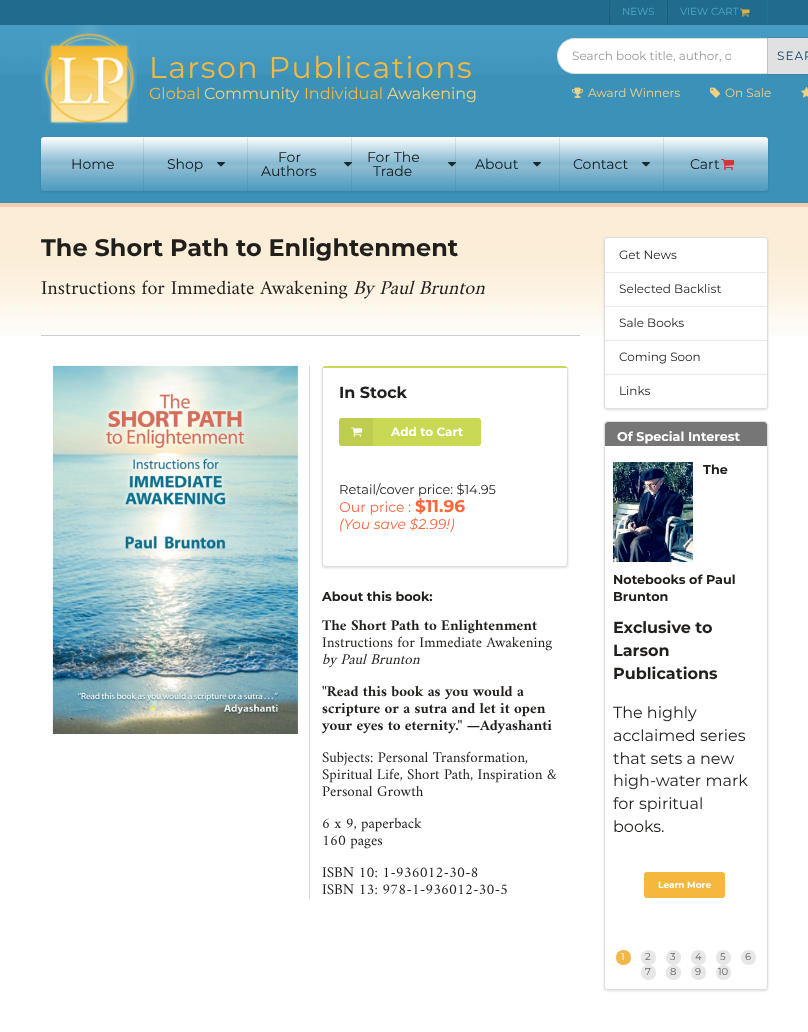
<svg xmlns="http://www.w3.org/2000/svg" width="808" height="1032">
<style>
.a{font:10.25px Montserrat;fill:#54a5ca}
.b{font:30px Montserrat;letter-spacing:1.5px;fill:#f4b83f}
.c{font:16px Montserrat;fill:#f4b83f}
.d{font:16px Montserrat;fill:#f4d27a}
.e{font:12px Montserrat;fill:#999}
.f{font:12px Montserrat;letter-spacing:1px;fill:#024765}
.g{font:12px Montserrat;fill:#f3d180}
.h{font:14px Montserrat;fill:#12181b}
.i{font:bold 24px Montserrat;fill:#211f1c}
.j{font:20px Amiri;fill:#211f1c}
.k{font:italic 20px Amiri;fill:#211f1c}
.l{font:bold 16px Montserrat;fill:#211f1c}
.m{font:bold 12px Montserrat;fill:#fff}
.n{font:13px Montserrat;fill:#211f1c}
.o{font:14px Montserrat;fill:#fc673d}
.p{font:bold 17px Montserrat;fill:#fc673d}
.q{font:italic 14px Montserrat;fill:#fc673d}
.r{font:bold 12.75px Montserrat;fill:#211f1c}
.s{font:bold 15px Amiri;fill:#211f1c}
.t{font:15px Amiri;fill:#211f1c}
.u{font:italic 15px Amiri;fill:#211f1c}
.v{font:12px Montserrat;fill:#211f1c}
.w{font:bold 12.75px Montserrat;fill:#fff}
.x{font:16px Montserrat;fill:#211f1c}
.y{font:bold 9px Montserrat;fill:#fff}
.z{font:10px Montserrat;fill:#fff}
.a1{font:10px Montserrat;fill:#666}
</style>
<defs>
<linearGradient id="g1" gradientUnits="userSpaceOnUse" x1="405" y1="137" x2="405" y2="191"><stop offset="0" stop-color="#fefefe"/><stop offset="0.48" stop-color="#85b9d2"/><stop offset="0.55" stop-color="#8ebcd1"/><stop offset="1" stop-color="#4a9abf"/></linearGradient>
<linearGradient id="g2" gradientUnits="userSpaceOnUse" x1="405" y1="137" x2="405" y2="191"><stop offset="0" stop-color="#e8e8e8"/><stop offset="0.48" stop-color="#7baac1"/><stop offset="0.55" stop-color="#83adc0"/><stop offset="1" stop-color="#468eb0"/></linearGradient>
<clipPath id="clip1"><path d="M572 48h159v15H572z"/></clipPath>
</defs>
<rect width="100%" height="100%" fill="#fff"/>
<path fill="#3c91b8" d="M0 75h808v128H0z"/>
<image href="1.png" x="0" y="25" width="808" height="50"/>
<path fill="#1f6c8e" d="M0 0h808v25H0z"/>
<path fill="#217296" d="M667 22v-16c0-2.5 .5-6-3-6c1 0 2 1.5 2 2.5v13.5c0 2.5 .5 4.5 0 7c-.5 1-1 2-2 2c2 0 3-1 3-3z"/>
<path fill="#195c79" fill-rule="evenodd" d="M611.5 25h.5zm.5-25c-2 0-3 1-3 3v19c0 2 1 3 2.5 3c-1.5-.5-1.5-2-1.5-6v-3c-.5-5.5-1.5-16 2-16z"/>
<path fill="#217296" d="M768 22v-19c0-2-1-3-3-3c1 0 2 1 2 3v19c0 2-1 3-2 3c2 0 3-1 3-3z"/>
<path fill="#195c79" d="M667 0h1v25H667z"/>
<image href="2.png" x="740" y="8" width="10" height="9"/>
<image href="3.png" x="41" y="25" width="96" height="100"/>
<path fill="#fff" d="M575 38h193v36h-193c-10 0-18-8-18-18c0-10 8-18 18-18z"/>
<path fill="none" stroke="#22242626" d="M575 38.5h192.5v35h-192.5c-9.5 0-17.5-8-17.5-17.5c0-9.5 8-17.5 17.5-17.5z"/>
<path fill="none" stroke="#22242626" d="M767.5 37.5h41v37H767.5z"/>
<path fill="#e1e1e1" d="M768 38h40v36H768z"/>
<image href="4.png" x="572" y="87" width="12" height="11"/>
<image href="5.png" x="710" y="87" width="11" height="11"/>
<image href="6.png" x="801" y="87" width="7" height="11"/>
<rect fill="#22242626" filter="blur(1px)" x="41" y="138" width="727" height="54" rx="3"/>
<rect fill="url(#g1)" x="41" y="137" width="727" height="54" rx="3"/>
<path fill="url(#g2)" d="M663 137h1v54H663z"/>
<path fill="url(#g2)" d="M559 137h1v54H559z"/>
<path fill="url(#g2)" d="M455 137h1v54H455z"/>
<path fill="url(#g2)" d="M351 137h1v54H351z"/>
<path fill="url(#g2)" d="M247 137h1v54H247z"/>
<path fill="url(#g2)" d="M143 137h1v54H143z"/>
<image href="7.png" x="217" y="162" width="8" height="5"/>
<image href="8.png" x="344" y="162" width="8" height="5"/>
<image href="8.png" x="448" y="162" width="8" height="5"/>
<image href="7.png" x="533" y="162" width="8" height="5"/>
<image href="7.png" x="642" y="162" width="8" height="5"/>
<image href="9.png" x="721" y="159" width="13" height="11"/>
<image href="10.png" x="0" y="207" width="808" height="129"/>
<path fill="#f6ccb1" d="M0 203h808v4H0z"/>
<path fill="#cecece" d="M41 335h539v1H41z"/>
<image href="11.png" x="52" y="365" width="246" height="369"/>
<path fill="#d4d4d5" d="M309 366h1v533H309z"/>
<rect fill="#22242626" filter="blur(1px)" x="322" y="367" width="246" height="201" rx="3"/>
<rect fill="#fff" x="322" y="366" width="246" height="201" rx="3"/>
<path fill="#c9d955" d="M325 366l-2 1v1h2h240h2v-1l-2-1z"/>
<path fill="#dedede" d="M568 564v-195l-1-2v1v196l-1 1l1 1z"/>
<path fill="#22242626" d="M325 567h240l2-1l-1-1l-1 1h-240l-1-1l-1 1z"/>
<path fill="#22242626" d="M322 369v196l1 1l1-1l-1-1v-196v-1z"/>
<rect fill="#c9d955" x="339" y="418" width="142" height="28" rx="3"/>
<path fill="#0000000d" d="M339 418h34v28H339z"/>
<image href="12.png" x="351" y="427" width="12" height="10"/>
<rect fill="#22242626" filter="blur(1px)" x="604" y="238" width="164" height="172" rx="3"/>
<rect fill="#fff" x="604" y="237" width="164" height="172" rx="3"/>
<rect fill="none" stroke="#22242626" x="604.5" y="237.5" width="163" height="171" rx="2.5"/>
<path fill="#e9e9e9" d="M605 272h162v1H605z"/>
<path fill="#e9e9e9" d="M605 306h162v1H605z"/>
<path fill="#e9e9e9" d="M605 340h162v1H605z"/>
<path fill="#e9e9e9" d="M605 374h162v1H605z"/>
<rect fill="#22242626" filter="blur(1px)" x="604" y="422" width="164" height="569" rx="3"/>
<rect fill="#fff" x="604" y="421" width="164" height="569" rx="3"/>
<rect fill="none" stroke="#22242626" x="604.5" y="421.5" width="163" height="568" rx="2.5"/>
<path fill="#767676" d="M608 422h156c1.5 0 3 1.5 3 3v29h-162v-29c0-1.5 1.5-3 3-3z"/>
<path fill="#fff" d="M605 446h162v8H605z"/>
<image href="13.png" x="613" y="462" width="80" height="100"/>
<rect fill="#f4b83f" x="644" y="872" width="81" height="26" rx="3"/>
<rect fill="#f2b74b" x="616" y="950" width="15" height="15" rx="7"/>
<rect fill="#e7e7e7" x="641" y="950" width="15" height="15" rx="7"/>
<rect fill="#e7e7e7" x="666" y="950" width="15" height="15" rx="7"/>
<rect fill="#e7e7e7" x="691" y="950" width="15" height="15" rx="7"/>
<rect fill="#e7e7e7" x="716" y="950" width="15" height="15" rx="7"/>
<rect fill="#e7e7e7" x="741" y="950" width="15" height="15" rx="7"/>
<rect fill="#e7e7e7" x="641" y="965" width="15" height="15" rx="7"/>
<rect fill="#e7e7e7" x="666" y="965" width="15" height="15" rx="7"/>
<rect fill="#e7e7e7" x="691" y="965" width="15" height="15" rx="7"/>
<rect fill="#e7e7e7" x="716" y="965" width="15" height="15" rx="7"/>
<text class="a" x="622" y="15">NEWS</text>
<text class="a" x="680" y="15">VIEW CART</text>
<text class="b" x="149" y="78">Larson Publications</text>
<text class="c" x="149" y="99">Global</text>
<text class="d" x="204" y="99">Community</text>
<text class="c" x="304" y="99">Individual</text>
<text class="d" x="387" y="99">Awakening</text>
<g clip-path="url(#clip1)">
<text class="e" x="572" y="60">Search book title, author, o</text>
</g>
<text class="f" x="777" y="60">SEAR</text>
<text class="g" x="588" y="97">Award Winners</text>
<text class="g" x="725" y="97">On Sale</text>
<text class="h" x="71" y="169">Home</text>
<text class="h" x="167" y="169">Shop</text>
<text class="h" x="278" y="162">For</text>
<text class="h" x="261" y="176">Authors</text>
<text class="h" x="367" y="162">For The</text>
<text class="h" x="373" y="176">Trade</text>
<text class="h" x="475" y="169">About</text>
<text class="h" x="573" y="169">Contact</text>
<text class="h" x="690" y="169">Cart</text>
<text class="i" x="41" y="256">The Short Path to Enlightenment</text>
<text class="j" x="41" y="294">Instructions for Immediate Awakening</text>
<text class="k" x="353" y="294">By Paul Brunton</text>
<text class="l" x="339" y="398">In Stock</text>
<text class="m" x="391" y="436">Add to Cart</text>
<text class="n" x="339" y="494">Retail/cover price: $14.95</text>
<text class="o" x="339" y="512">Our price :</text>
<text class="p" x="415" y="512">$11.96</text>
<text class="q" x="339" y="529">(You save $2.99!)</text>
<text class="r" x="322" y="601">About this book:</text>
<text class="s" x="322" y="630">The Short Path to Enlightenment</text>
<text class="t" x="322" y="647">Instructions for Immediate Awakening</text>
<text class="u" x="322" y="664">by Paul Brunton</text>
<text class="s" x="322" y="696">"Read this book as you would a</text>
<text class="s" x="322" y="713">scripture or a sutra and let it open</text>
<text class="s" x="322" y="730">your eyes to eternity." —Adyashanti</text>
<text class="t" x="322" y="762">Subjects: Personal Transformation,</text>
<text class="t" x="322" y="779">Spiritual Life, Short Path, Inspiration &amp;</text>
<text class="t" x="322" y="796">Personal Growth</text>
<text class="t" x="322" y="828">6 x 9, paperback</text>
<text class="t" x="322" y="845">160 pages</text>
<text class="t" x="322" y="877">ISBN 10: 1-936012-30-8</text>
<text class="t" x="322" y="894">ISBN 13: 978-1-936012-30-5</text>
<text class="v" x="619" y="259">Get News</text>
<text class="v" x="619" y="293">Selected Backlist</text>
<text class="v" x="619" y="327">Sale Books</text>
<text class="v" x="619" y="361">Coming Soon</text>
<text class="v" x="619" y="395">Links</text>
<text class="w" x="617" y="441">Of Special Interest</text>
<text class="r" x="703" y="474">The</text>
<text class="r" x="613" y="584">Notebooks of Paul</text>
<text class="r" x="613" y="601">Brunton</text>
<text class="l" x="613" y="633">Exclusive to</text>
<text class="l" x="613" y="656">Larson</text>
<text class="l" x="613" y="679">Publications</text>
<text class="x" x="613" y="718">The highly</text>
<text class="x" x="613" y="741">acclaimed series</text>
<text class="x" x="613" y="764">that sets a new</text>
<text class="x" x="613" y="786">high-water mark</text>
<text class="x" x="613" y="809">for spiritual</text>
<text class="x" x="613" y="832">books.</text>
<text class="y" x="658" y="888">Learn More</text>
<text class="z" x="621" y="960">1</text>
<text class="a1" x="645" y="960">2</text>
<text class="a1" x="670" y="960">3</text>
<text class="a1" x="695" y="960">4</text>
<text class="a1" x="720" y="960">5</text>
<text class="a1" x="745" y="960">6</text>
<text class="a1" x="645" y="975">7</text>
<text class="a1" x="670" y="975">8</text>
<text class="a1" x="695" y="975">9</text>
<text class="a1" x="718" y="975">10</text>
</svg>
